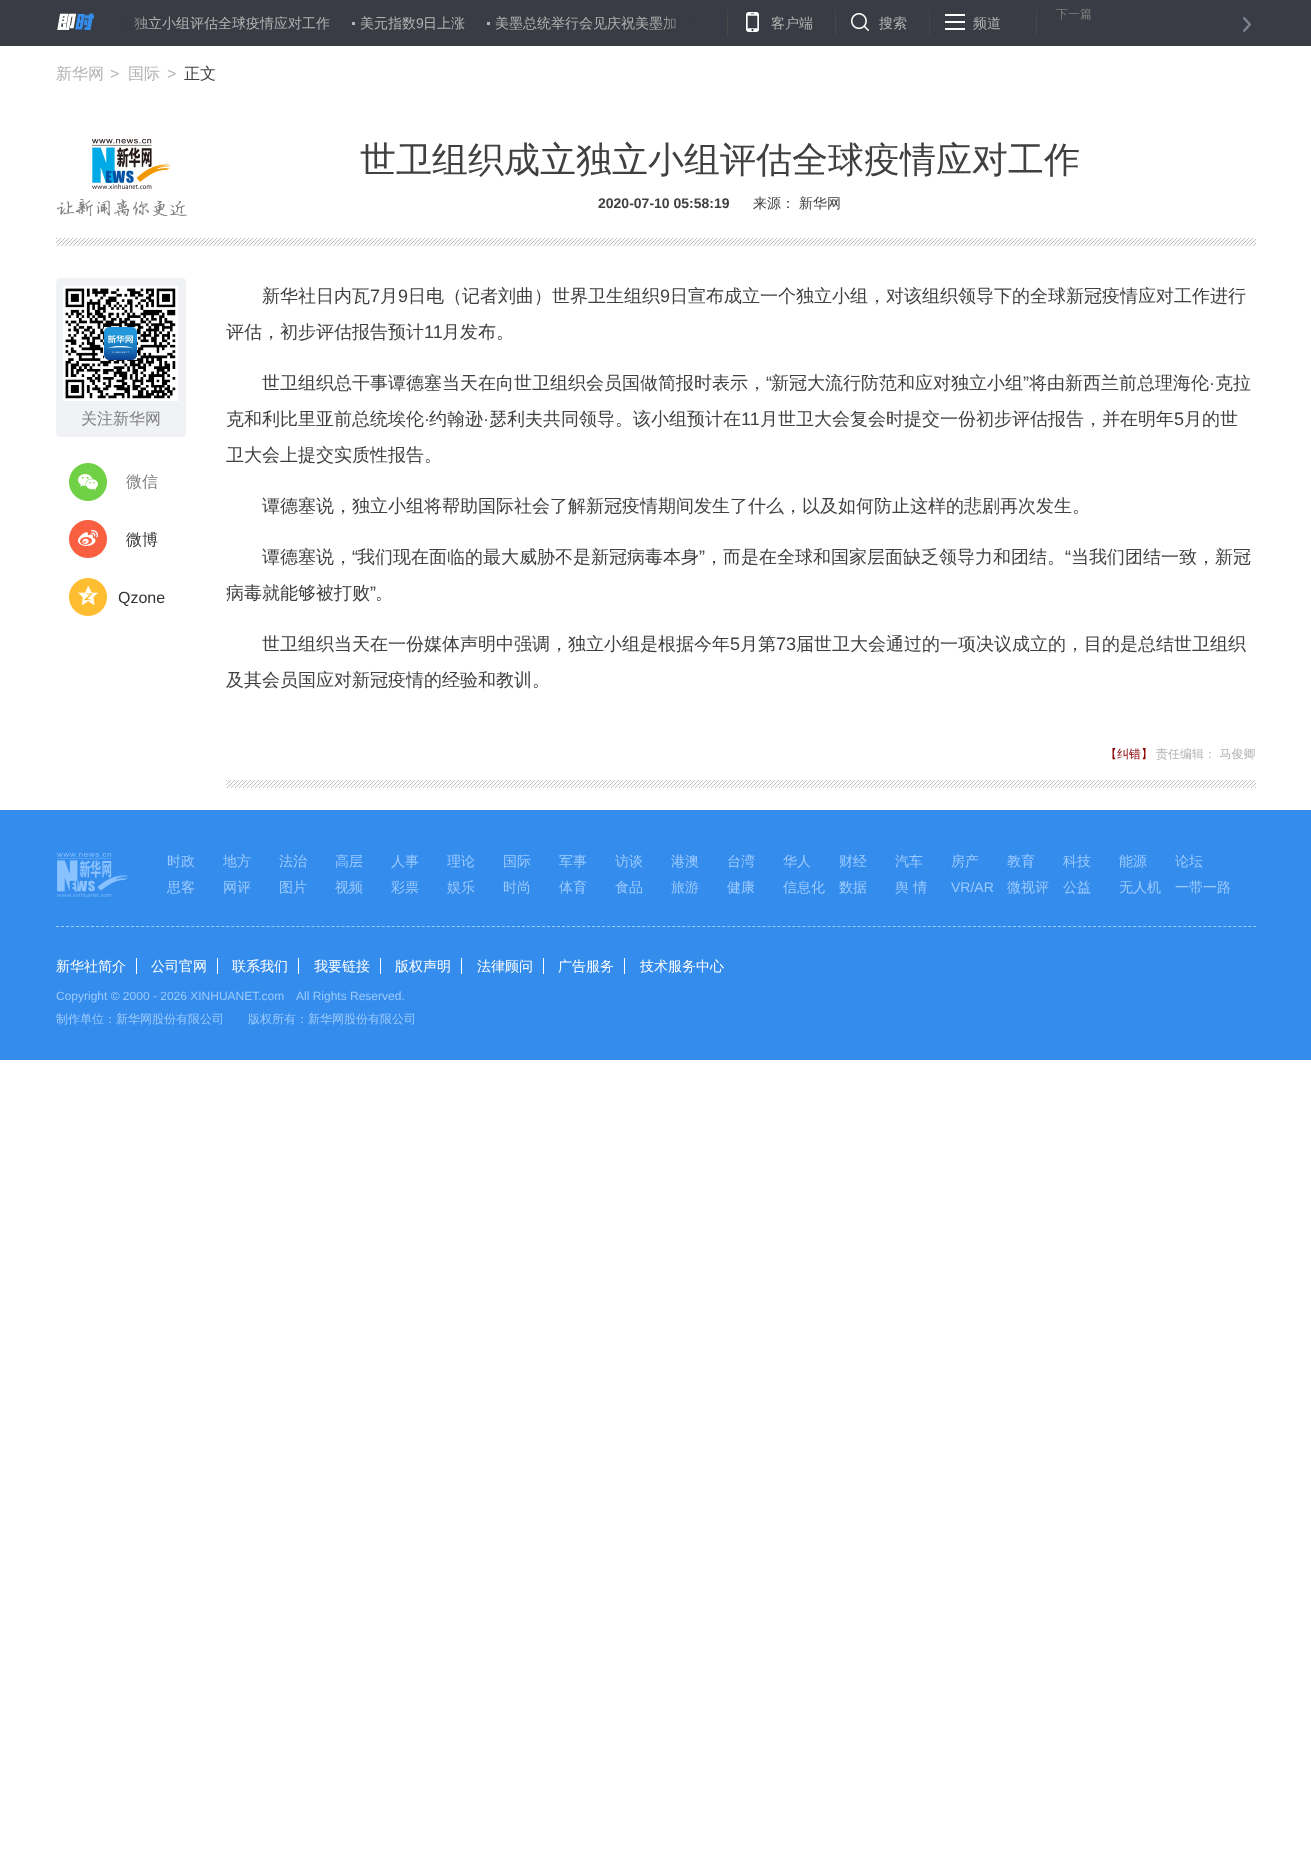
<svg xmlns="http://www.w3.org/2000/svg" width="1311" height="1852">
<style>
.a{font:500 14px WenQuanYi Zen Hei;fill:#b3b3b3}
.b{font:14px Liberation Sans;fill:#b3b3b3}
.c{font:500 12px WenQuanYi Zen Hei;fill:#808080}
.d{font:500 16px WenQuanYi Zen Hei;fill:#b3b3b3}
.e{font:16px Liberation Sans;fill:#b3b3b3}
.f{font:500 16px WenQuanYi Zen Hei;fill:#404040}
.g{font:500 36px WenQuanYi Zen Hei;fill:#404040}
.h{font:bold 14px Liberation Sans;fill:#404040}
.i{font:500 14px WenQuanYi Zen Hei;fill:#404040}
.j{font:500 16px WenQuanYi Zen Hei;fill:#808080}
.k{font:500 16px WenQuanYi Zen Hei;fill:#333}
.l{font:16px Liberation Sans;fill:#333}
.m{font:500 18px WenQuanYi Zen Hei;fill:#404040}
.n{font:18px Liberation Sans;fill:#404040}
.o{font:500 12px WenQuanYi Zen Hei;fill:#8a0000}
.p{font:500 12px WenQuanYi Zen Hei;fill:#b3b3b3}
.q{font:500 14px WenQuanYi Zen Hei;fill:#9ccbff}
.r{font:14px Liberation Sans;fill:#9ccbff}
.s{font:500 14px WenQuanYi Zen Hei;fill:#fff}
.t{font:12px Liberation Sans;fill:#9ccbff}
.u{font:500 12px WenQuanYi Zen Hei;fill:#9ccbff}
</style>
<rect width="100%" height="100%" fill="#fff"/>
<path fill="#393c44" d="M0 0h1311v46H0z"/>
<image href="1.png" x="57" y="13" width="38" height="17"/>
<path fill="#b3b3b3" d="M352 22h3v3H352z"/>
<path fill="#b3b3b3" d="M487 22h3v3H487z"/>
<path fill="#464646" d="M727 9h1v28H727z"/>
<image href="4.png" x="746" y="12" width="13" height="20"/>
<path fill="#464646" d="M835 9h1v28H835z"/>
<image href="5.png" x="851" y="13" width="18" height="18"/>
<path fill="#464646" d="M929 9h1v28H929z"/>
<image href="6.png" x="945" y="14" width="20" height="16"/>
<path fill="#464646" d="M1036 9h1v28H1036z"/>
<image href="7.png" x="1243" y="17" width="8" height="15"/>
<image href="8.png" x="56" y="238" width="1200" height="8"/>
<image href="9.png" x="57" y="139" width="130" height="77"/>
<rect fill="#f0f2f5" x="56" y="278" width="130" height="159" rx="4"/>
<image href="10.png" x="63" y="286" width="115" height="115"/>
<image href="11.png" x="69" y="463" width="38" height="38"/>
<image href="12.png" x="69" y="520" width="38" height="38"/>
<image href="13.png" x="69" y="578" width="38" height="38"/>
<image href="14.png" x="226" y="780" width="1030" height="8"/>
<path fill="#348cec" d="M0 810h1311v250H0z"/>
<path fill="none" stroke="#9ccbff" stroke-dasharray="3 2.01" d="M56 926.5h1200"/>
<image href="15.png" x="57" y="853" width="72" height="44"/>
<path fill="#fff" d="M136 958h1v16H136z"/>
<path fill="#fff" d="M217 958h1v16H217z"/>
<path fill="#fff" d="M298 958h1v16H298z"/>
<path fill="#fff" d="M380 958h1v16H380z"/>
<path fill="#fff" d="M461 958h1v16H461z"/>
<path fill="#fff" d="M543 958h1v16H543z"/>
<path fill="#fff" d="M624 958h1v16H624z"/>
<text class="a" x="134" y="28">独立小组评估全球疫情应对工作</text>
<image href="2.png" x="96" y="16" width="54" height="14"/>
<text class="a" x="360" y="28">美元指数</text>
<text class="b" x="416" y="28">9</text>
<text class="a" x="423" y="28">日上涨</text>
<text class="a" x="495" y="28">美墨总统举行会见庆祝美墨加</text>
<image href="3.png" x="665" y="16" width="61" height="14"/>
<text class="a" x="771" y="28">客户端</text>
<text class="a" x="879" y="28">搜索</text>
<text class="a" x="973" y="28">频道</text>
<text class="c" x="1056" y="18">下一篇</text>
<text class="d" x="56" y="79">新华网</text>
<text class="e" x="110" y="79">&gt;</text>
<text class="d" x="128" y="79">国际</text>
<text class="e" x="167" y="79">&gt;</text>
<text class="f" x="184" y="79">正文</text>
<text class="g" x="360" y="172">世卫组织成立独立小组评估全球疫情应对工作</text>
<text class="h" x="598" y="208">2020-07-10 05:58:19</text>
<text class="i" x="753" y="208">来源：</text>
<text class="i" x="799" y="208">新华网</text>
<text class="j" x="81" y="424">关注新华网</text>
<text class="j" x="126" y="487">微信</text>
<text class="k" x="126" y="545">微博</text>
<text class="l" x="118" y="603">Qzone</text>
<text class="m" x="262" y="302">新华社日内瓦</text>
<text class="n" x="370" y="302">7</text>
<text class="m" x="380" y="302">月</text>
<text class="n" x="398" y="302">9</text>
<text class="m" x="408" y="302">日电（记者刘曲）世界卫生组织</text>
<text class="n" x="660" y="302">9</text>
<text class="m" x="670" y="302">日宣布成立一个独立小组，对该组织领导下的全球新冠疫情应对工作进行</text>
<text class="m" x="226" y="338">评估，初步评估报告预计</text>
<text class="n" x="424" y="338">11</text>
<text class="m" x="442" y="338">月发布。</text>
<text class="m" x="262" y="389">世卫组织总干事谭德塞当天在向世卫组织会员国做简报时表示，</text>
<text class="n" x="766" y="389">“</text>
<text class="m" x="771" y="389">新冠大流行防范和应对独立小组</text>
<text class="n" x="1023" y="389">”</text>
<text class="m" x="1029" y="389">将由新西兰前总理海伦</text>
<text class="m" x="1215" y="389">克拉</text>
<text class="n" x="1209" y="389">·</text>
<text class="m" x="226" y="425">克和利比里亚前总统埃伦</text>
<text class="n" x="424" y="425">·</text>
<text class="m" x="429" y="425">约翰逊</text>
<text class="n" x="483" y="425">·</text>
<text class="m" x="489" y="425">瑟利夫共同领导。该小组预计在</text>
<text class="n" x="741" y="425">11</text>
<text class="m" x="760" y="425">月世卫大会复会时提交一份初步评估报告，并在明年</text>
<text class="n" x="1174" y="425">5</text>
<text class="m" x="1184" y="425">月的世</text>
<text class="m" x="226" y="461">卫大会上提交实质性报告。</text>
<text class="m" x="262" y="512">谭德塞说，独立小组将帮助国际社会了解新冠疫情期间发生了什么，以及如何防止这样的悲剧再次发生。</text>
<text class="m" x="262" y="563">谭德塞说，</text>
<text class="n" x="352" y="563">“</text>
<text class="m" x="357" y="563">我们现在面临的最大威胁不是新冠病毒本身</text>
<text class="n" x="699" y="563">”</text>
<text class="m" x="705" y="563">，而是在全球和国家层面缺乏领导力和团结。</text>
<text class="n" x="1065" y="563">“</text>
<text class="m" x="1071" y="563">当我们团结一致，新冠</text>
<text class="m" x="226" y="599">病毒就能够被打败</text>
<text class="n" x="370" y="599">”</text>
<text class="m" x="375" y="599">。</text>
<text class="m" x="262" y="650">世卫组织当天在一份媒体声明中强调，独立小组是根据今年</text>
<text class="n" x="730" y="650">5</text>
<text class="m" x="740" y="650">月第</text>
<text class="n" x="776" y="650">73</text>
<text class="m" x="796" y="650">届世卫大会通过的一项决议成立的，目的是总结世卫组织</text>
<text class="m" x="226" y="686">及其会员国应对新冠疫情的经验和教训。</text>
<text class="o" x="1105" y="758">【纠错】</text>
<text class="p" x="1156" y="758">责任编辑： 马俊卿</text>
<text class="q" x="167" y="866">时政</text>
<text class="q" x="223" y="866">地方</text>
<text class="q" x="279" y="866">法治</text>
<text class="q" x="335" y="866">高层</text>
<text class="q" x="391" y="866">人事</text>
<text class="q" x="447" y="866">理论</text>
<text class="q" x="503" y="866">国际</text>
<text class="q" x="559" y="866">军事</text>
<text class="q" x="615" y="866">访谈</text>
<text class="q" x="671" y="866">港澳</text>
<text class="q" x="727" y="866">台湾</text>
<text class="q" x="783" y="866">华人</text>
<text class="q" x="839" y="866">财经</text>
<text class="q" x="895" y="866">汽车</text>
<text class="q" x="951" y="866">房产</text>
<text class="q" x="1007" y="866">教育</text>
<text class="q" x="1063" y="866">科技</text>
<text class="q" x="1119" y="866">能源</text>
<text class="q" x="1175" y="866">论坛</text>
<text class="q" x="167" y="892">思客</text>
<text class="q" x="223" y="892">网评</text>
<text class="q" x="279" y="892">图片</text>
<text class="q" x="335" y="892">视频</text>
<text class="q" x="391" y="892">彩票</text>
<text class="q" x="447" y="892">娱乐</text>
<text class="q" x="503" y="892">时尚</text>
<text class="q" x="559" y="892">体育</text>
<text class="q" x="615" y="892">食品</text>
<text class="q" x="671" y="892">旅游</text>
<text class="q" x="727" y="892">健康</text>
<text class="q" x="783" y="892">信息化</text>
<text class="q" x="839" y="892">数据</text>
<text class="q" x="895" y="892">舆 情</text>
<text class="r" x="951" y="892">VR/AR</text>
<text class="q" x="1007" y="892">微视评</text>
<text class="q" x="1063" y="892">公益</text>
<text class="q" x="1119" y="892">无人机</text>
<text class="q" x="1175" y="892">一带一路</text>
<text class="s" x="56" y="971">新华社简介</text>
<text class="s" x="151" y="971">公司官网</text>
<text class="s" x="232" y="971">联系我们</text>
<text class="s" x="314" y="971">我要链接</text>
<text class="s" x="395" y="971">版权声明</text>
<text class="s" x="477" y="971">法律顾问</text>
<text class="s" x="558" y="971">广告服务</text>
<text class="s" x="640" y="971">技术服务中心</text>
<text class="t" x="56" y="1000">Copyright © 2000 - 2026 XINHUANET.com</text>
<text class="t" x="296" y="1000">All Rights Reserved.</text>
<text class="u" x="56" y="1023">制作单位：新华网股份有限公司　　版权所有：新华网股份有限公司</text>
</svg>
